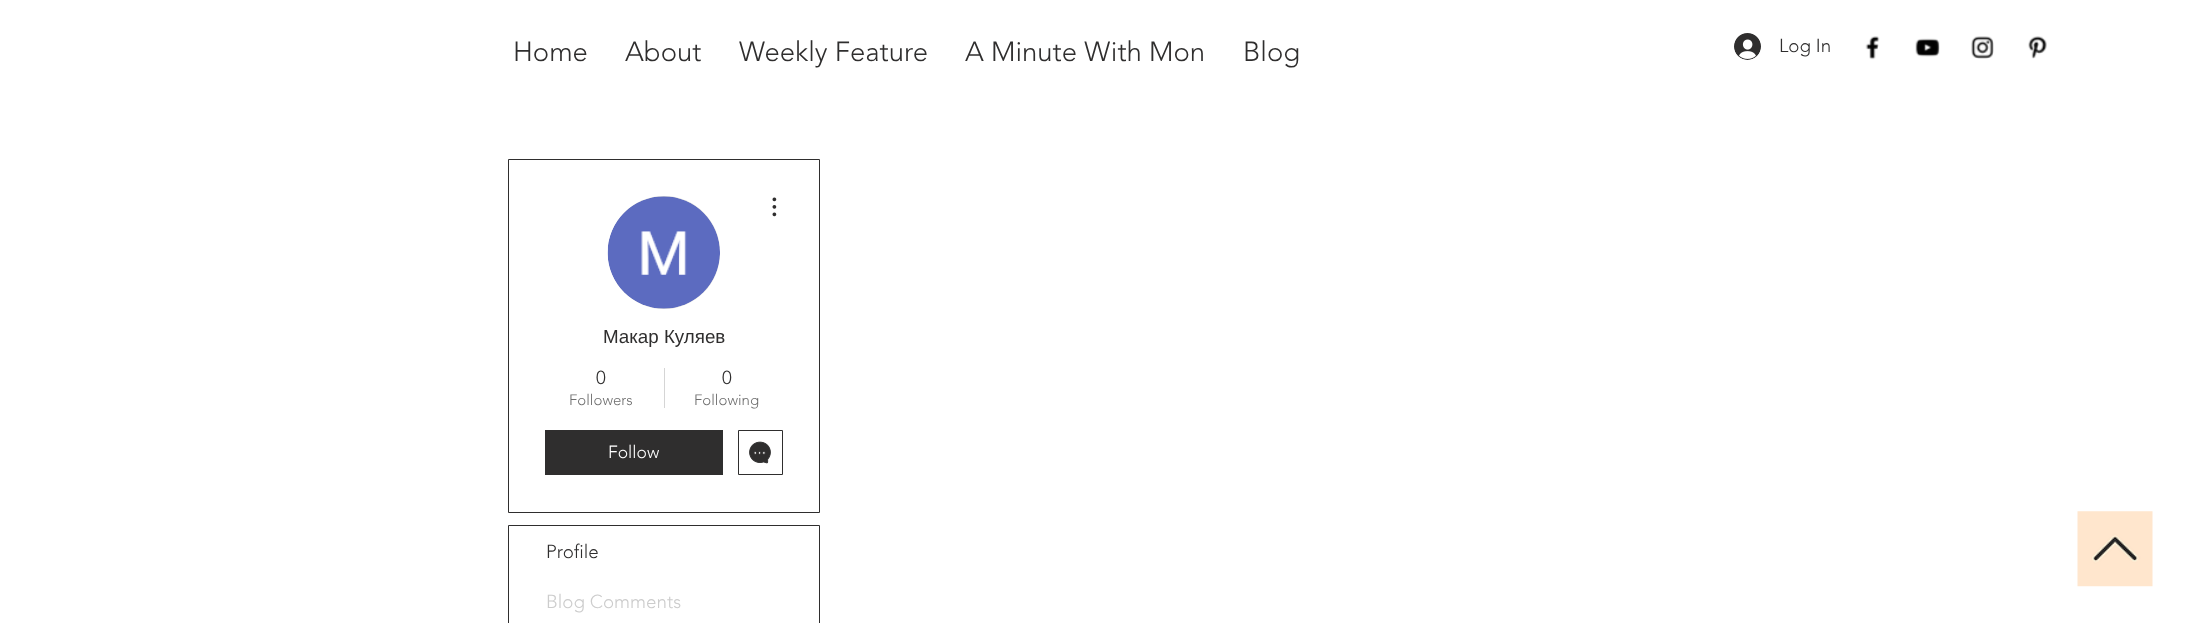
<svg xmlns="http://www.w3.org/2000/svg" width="2189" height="623">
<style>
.a{font:300 27.5px 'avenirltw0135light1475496';fill:#2f2e2e}
.b{font:300 18.75px 'avenirltw0135light1475496';fill:#2f2e2e}
.c{font:18.75px Liberation Sans;fill:#2f2e2e}
.d{font:300 15px 'avenirltw0135light1475496';fill:#6d6d6d}
.e{font:300 17.5px 'avenirltw0135light1475496';fill:#fff}
.f{font:300 18.75px 'avenirltw0135light1475496';fill:#ccc}
</style>
<rect width="100%" height="100%" fill="#fff"/>
<image href="1.png" x="1734" y="33" width="27" height="27"/>
<image href="2.png" x="1865" y="36" width="15" height="24"/>
<image href="3.png" x="1915" y="38" width="25" height="19"/>
<image href="4.png" x="1971" y="36" width="23" height="23"/>
<image href="5.png" x="2028" y="36" width="19" height="23"/>
<path fill="none" stroke="#2f2e2e" d="M508.5 159.5h311v353H508.5z"/>
<rect fill="#d8d8d8" x="608" y="196" width="112" height="113" rx="56"/>
<image href="6.png" x="607" y="196" width="113" height="113"/>
<image href="7.png" x="772" y="197" width="5" height="20"/>
<path fill="#d5d5d5" d="M664 368h1v40H664z"/>
<path fill="#2f2e2e" d="M545 430h178v45H545z"/>
<path fill="none" stroke="#2f2e2e" d="M738.5 430.5h44v44H738.5z"/>
<image href="8.png" x="749" y="441" width="22" height="23"/>
<path fill="none" stroke="#2f2e2e" d="M508.5 525.5h311v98H508.5z"/>
<image href="9.png" x="2077" y="511" width="76" height="76"/>
<text class="a" x="513" y="61">Home</text>
<text class="a" x="625" y="61">About</text>
<text class="a" x="739" y="61">Weekly Feature</text>
<text class="a" x="965" y="61">A Minute With Mon</text>
<text class="a" x="1243" y="61">Blog</text>
<text class="b" x="1779" y="52">Log In</text>
<text class="c" x="603" y="343">Макар Куляев</text>
<text class="b" x="596" y="384">0</text>
<text class="d" x="569" y="405">Followers</text>
<text class="b" x="722" y="384">0</text>
<text class="d" x="694" y="405">Following</text>
<text class="e" x="608" y="458">Follow</text>
<text class="b" x="546" y="558">Profile</text>
<text class="f" x="546" y="608">Blog Comments</text>
</svg>
